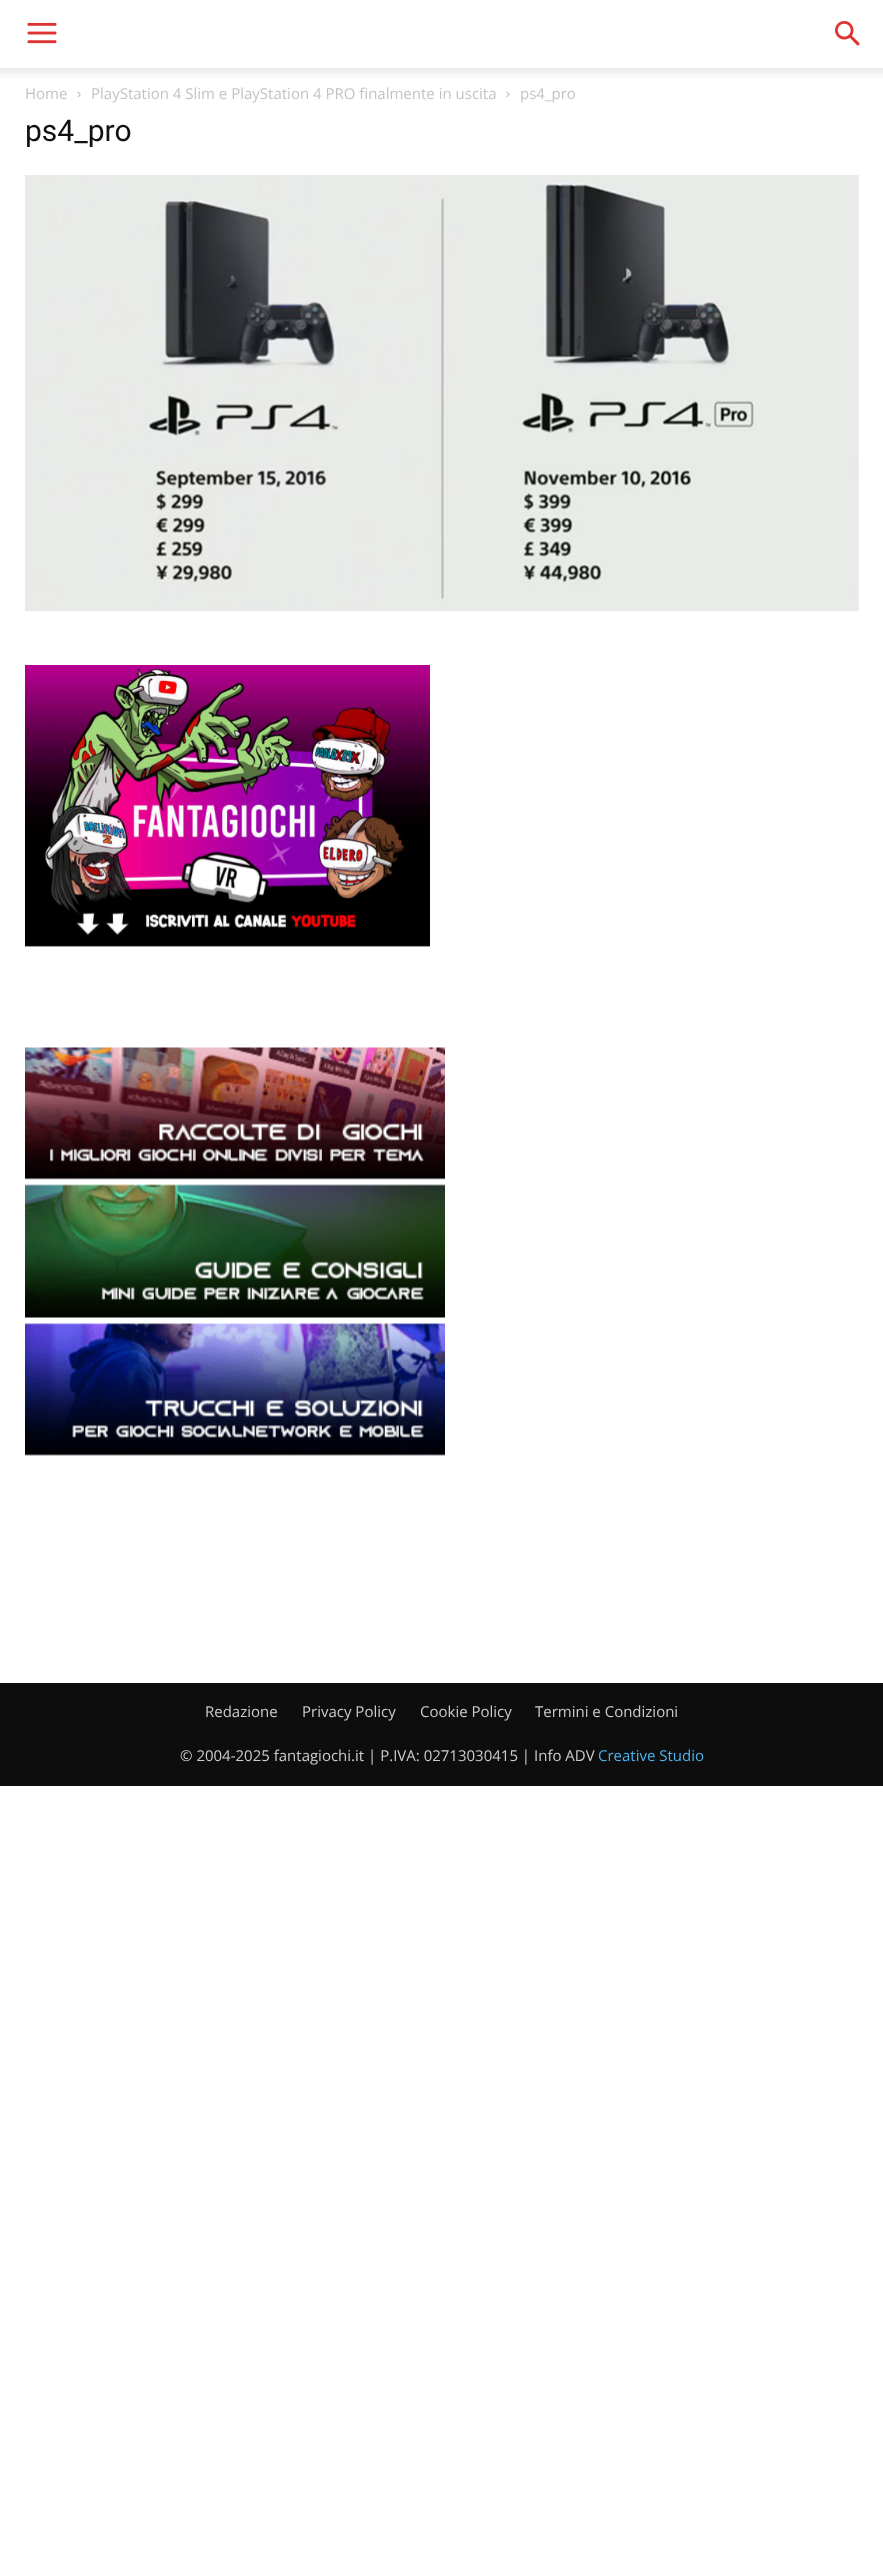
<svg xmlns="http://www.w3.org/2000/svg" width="883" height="2568">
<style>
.a{font:15px Open Sans;fill:#c3c3c3}
.b{font:30px Roboto;fill:#111}
.c{font:15px Open Sans;fill:#ccc}
.d{font:15px Open Sans;fill:#4db2ec}
</style>
<rect width="100%" height="100%" fill="#fff"/>
<image href="1.png" x="27" y="22" width="30" height="22"/>
<image href="2.png" x="835" y="21" width="25" height="25"/>
<image href="3.png" x="0" y="68" width="883" height="10"/>
<image href="4.png" x="77" y="91" width="4" height="7"/>
<image href="5.png" x="506" y="91" width="4" height="7"/>
<image href="6.png" x="25" y="175" width="834" height="437"/>
<image href="7.png" x="25" y="665" width="405" height="282"/>
<image href="8.png" x="25" y="1047" width="420" height="133"/>
<image href="9.png" x="25" y="1184" width="420" height="134"/>
<image href="10.png" x="25" y="1323" width="420" height="133"/>
<path fill="#0d0d0d" d="M0 1683h883v103H0z"/>
<text class="a" x="25" y="99">Home</text>
<text class="a" x="91" y="99">PlayStation 4 Slim e PlayStation 4 PRO finalmente in uscita</text>
<text class="a" x="520" y="99">ps4_pro</text>
<text class="b" x="25" y="141">ps4_pro</text>
<text class="c" x="205" y="1717">Redazione</text>
<text class="c" x="302" y="1717">Privacy Policy</text>
<text class="c" x="420" y="1717">Cookie Policy</text>
<text class="c" x="535" y="1717">Termini e Condizioni</text>
<text class="c" x="180" y="1761">© 2004-2025 fantagiochi.it | P.IVA: 02713030415 | Info ADV</text>
<text class="d" x="598" y="1761">Creative Studio</text>
</svg>
